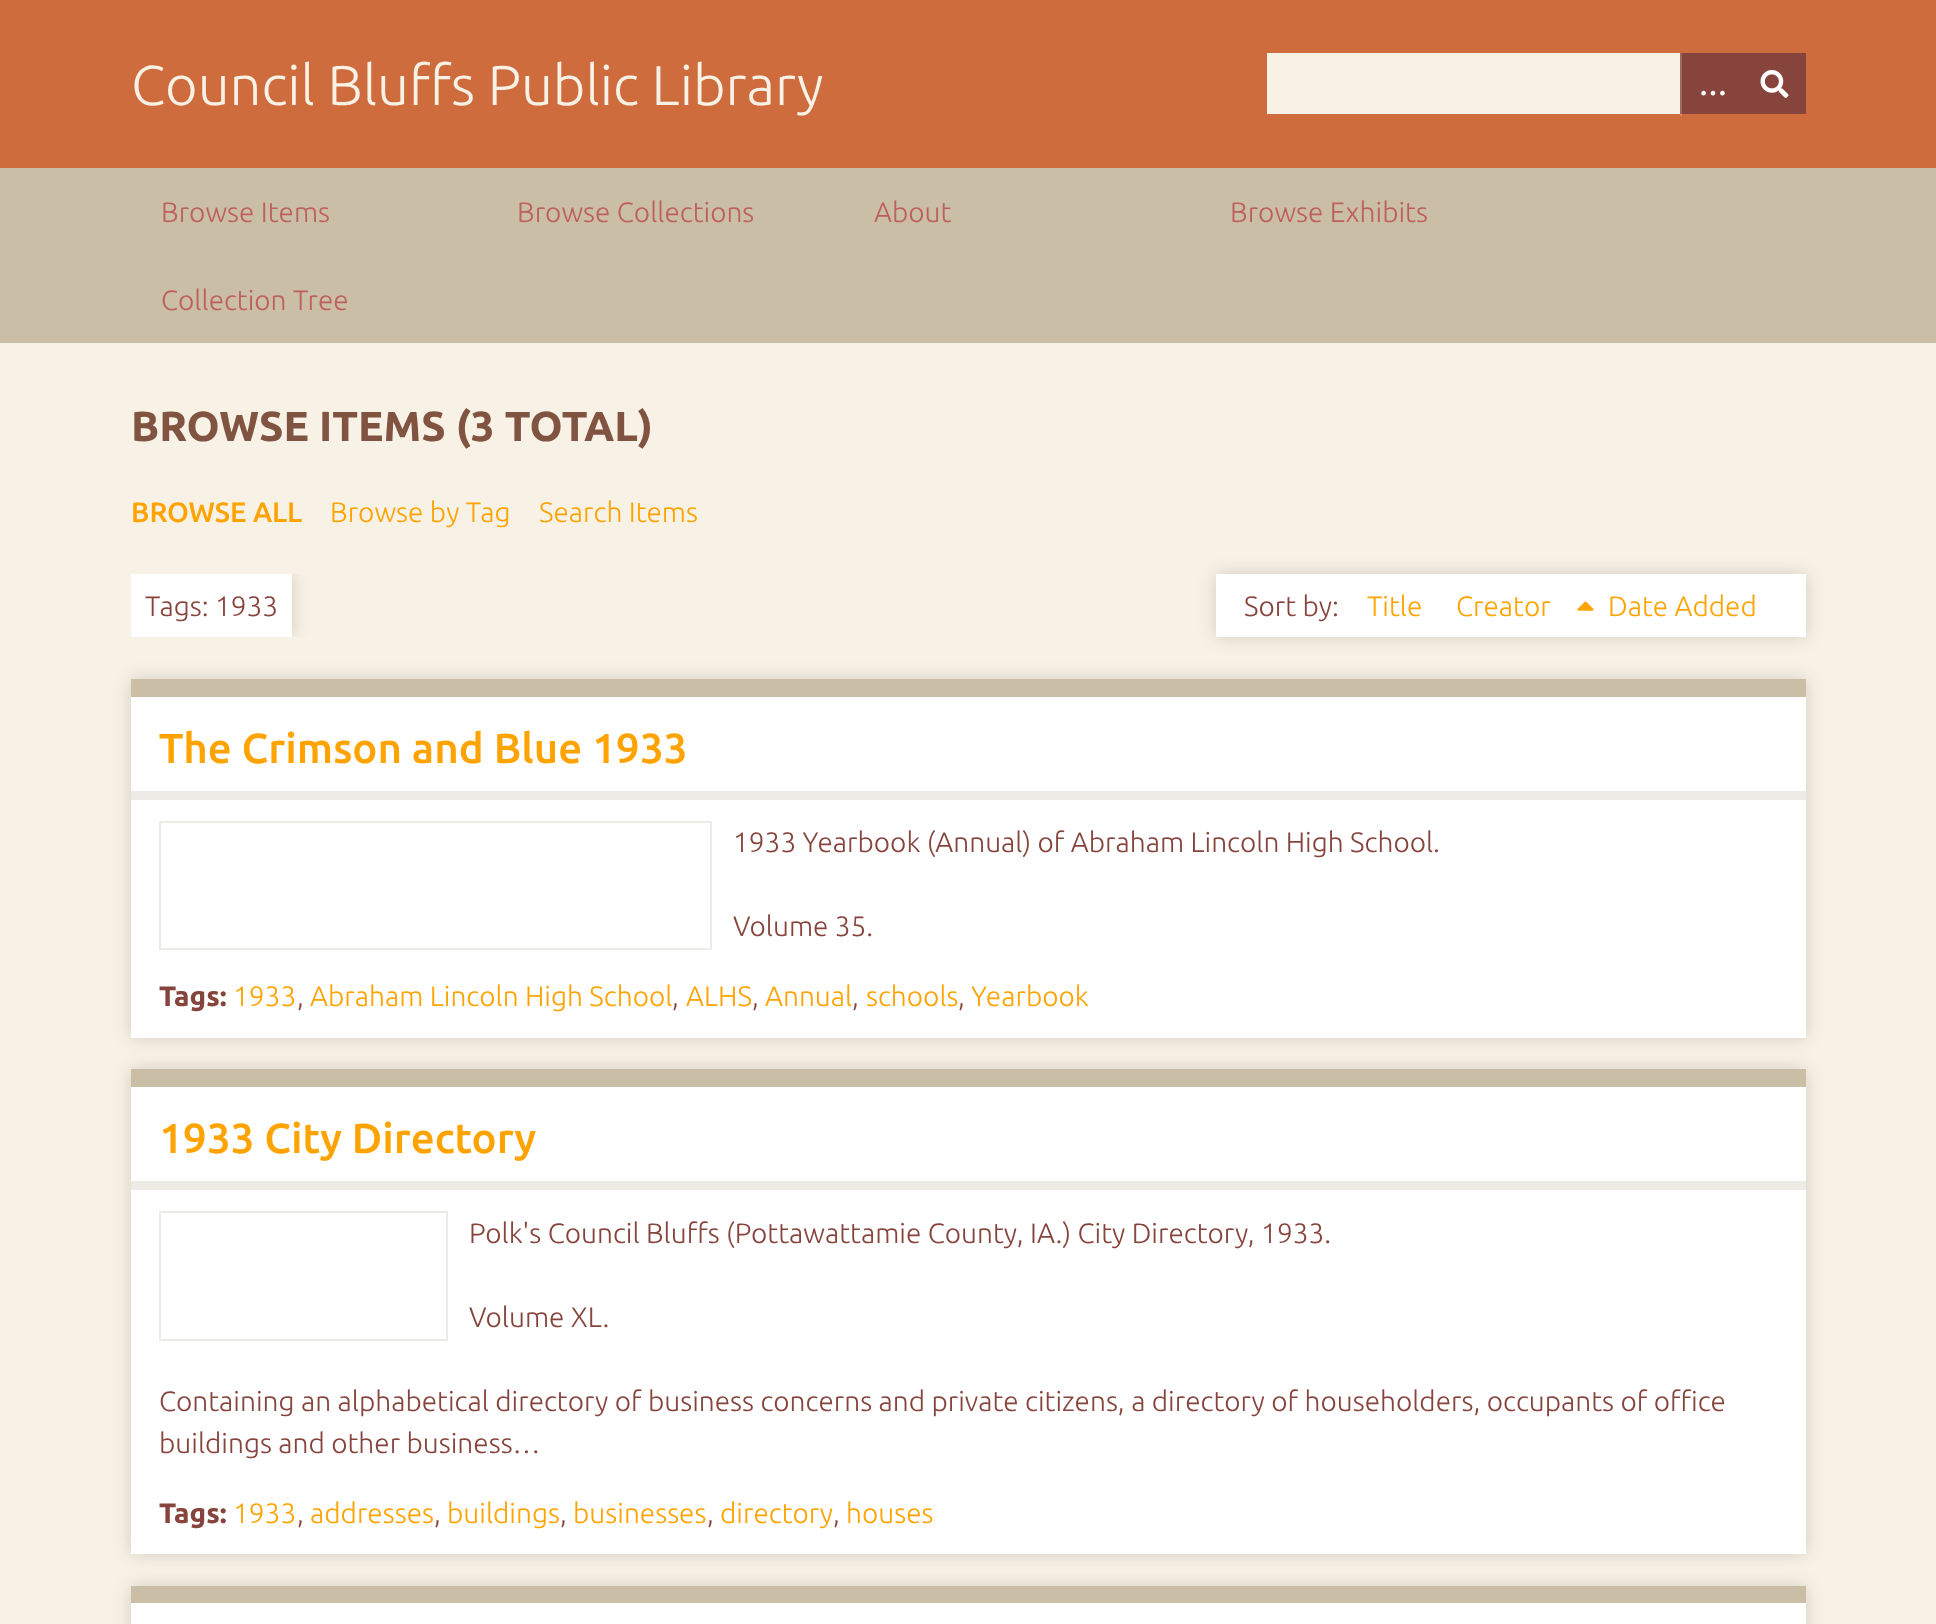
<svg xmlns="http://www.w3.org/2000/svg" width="1936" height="1624">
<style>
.a{font:300 56px Ubuntu;fill:#f8f1e5}
.b{font:bold 28px Liberation Serif;fill:#fff}
.c{font:300 28px Ubuntu;fill:#be5e5e}
.d{font:bold 42px Ubuntu;fill:#815442}
.e{font:500 28px Ubuntu;fill:#ffa300}
.f{font:300 28px Ubuntu;fill:#ffa300}
.g{font:300 28px Ubuntu;fill:#86443c}
.h{font:500 42px Ubuntu;fill:#ffa300}
.i{font:bold 28px Ubuntu;fill:#86443c}
</style>
<defs>
<clipPath id="clip1"><path d="M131 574h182v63H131z"/></clipPath>
</defs>
<rect width="100%" height="100%" fill="#ce6c3e"/>
<path fill="#d88965" d="M1680 114h2v2H1680z"/>
<path fill="#f8f1e5" d="M1267 53h413v61H1267z"/>
<path fill="#86443c" d="M1682 53h124v61H1682z"/>
<path fill="#9e6963" d="M1680 53h2v61H1680z"/>
<image href="1.png" x="1760" y="70" width="29" height="28"/>
<path fill="#cabfa6" d="M0 168h1936v175H0z"/>
<path fill="#f8f1e5" d="M0 343h1936v1281H0z"/>
<g clip-path="url(#clip1)">
<path fill="#00000026" filter="blur(9px)" d="M131 574h161v63H131z"/>
</g>
<path fill="#fff" d="M131 574h161v63H131z"/>
<path fill="#00000026" filter="blur(9px)" d="M1216 574h590v63H1216z"/>
<path fill="#fff" d="M1216 574h590v63H1216z"/>
<image href="2.png" x="1577" y="601" width="17" height="10"/>
<path fill="#00000026" filter="blur(9px)" d="M131 679h1675v359H131z"/>
<path fill="#fff" d="M131 697h1675v341H131z"/>
<path fill="#cabfa6" d="M131 679h1675v18H131z"/>
<path fill="#ecebe6" d="M131 791h1675v9H131z"/>
<path fill="none" stroke="#ecebe6" stroke-width="2" d="M160 822h551v127H160z"/>
<path fill="#00000026" filter="blur(9px)" d="M131 1069h1675v485H131z"/>
<path fill="#fff" d="M131 1087h1675v467H131z"/>
<path fill="#cabfa6" d="M131 1069h1675v18H131z"/>
<path fill="#ecebe6" d="M131 1181h1675v9H131z"/>
<path fill="none" stroke="#ecebe6" stroke-width="2" d="M160 1212h287v128H160z"/>
<path fill="#00000026" filter="blur(9px)" d="M131 1586h1675v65H131z"/>
<path fill="#fff" d="M131 1603h1675v21H131z"/>
<path fill="#cabfa6" d="M131 1586h1675v17H131z"/>
<text class="a" x="131" y="105">Council Bluffs Public Library</text>
<text class="b" x="1699" y="95">…</text>
<text class="c" x="161" y="222">Browse Items</text>
<text class="c" x="517" y="222">Browse Collections</text>
<text class="c" x="874" y="222">About</text>
<text class="c" x="1230" y="222">Browse Exhibits</text>
<text class="c" x="161" y="310">Collection Tree</text>
<text class="d" x="131" y="441">BROWSE ITEMS (3 TOTAL)</text>
<text class="e" x="131" y="522">BROWSE ALL</text>
<text class="f" x="330" y="522">Browse by Tag</text>
<text class="f" x="539" y="522">Search Items</text>
<text class="g" x="145" y="616">Tags: 1933</text>
<text class="g" x="1244" y="616">Sort by:</text>
<text class="f" x="1367" y="616">Title</text>
<text class="f" x="1456" y="616">Creator</text>
<text class="f" x="1608" y="616">Date Added</text>
<text class="h" x="159" y="763">The Crimson and Blue 1933</text>
<text class="g" x="733" y="852">1933 Yearbook (Annual) of Abraham Lincoln High School.</text>
<text class="g" x="733" y="936">Volume 35.</text>
<text class="i" x="159" y="1006">Tags:</text>
<text class="f" x="233" y="1006">1933</text>
<text class="g" x="297" y="1006">,</text>
<text class="f" x="310" y="1006">Abraham Lincoln High School</text>
<text class="g" x="672" y="1006">,</text>
<text class="f" x="686" y="1006">ALHS</text>
<text class="g" x="752" y="1006">,</text>
<text class="f" x="765" y="1006">Annual</text>
<text class="g" x="852" y="1006">,</text>
<text class="f" x="866" y="1006">schools</text>
<text class="g" x="958" y="1006">,</text>
<text class="f" x="971" y="1006">Yearbook</text>
<text class="h" x="159" y="1153">1933 City Directory</text>
<text class="g" x="469" y="1243">Polk's Council Bluffs (Pottawattamie County, IA.) City Directory, 1933.</text>
<text class="g" x="469" y="1327">Volume XL.</text>
<text class="g" x="159" y="1411">Containing an alphabetical directory of business concerns and private citizens, a directory of householders, occupants of office</text>
<text class="g" x="159" y="1453">buildings and other business…</text>
<text class="i" x="159" y="1523">Tags:</text>
<text class="f" x="233" y="1523">1933</text>
<text class="g" x="297" y="1523">,</text>
<text class="f" x="310" y="1523">addresses</text>
<text class="g" x="434" y="1523">,</text>
<text class="f" x="447" y="1523">buildings</text>
<text class="g" x="560" y="1523">,</text>
<text class="f" x="573" y="1523">businesses</text>
<text class="g" x="707" y="1523">,</text>
<text class="f" x="720" y="1523">directory</text>
<text class="g" x="833" y="1523">,</text>
<text class="f" x="846" y="1523">houses</text>
</svg>
